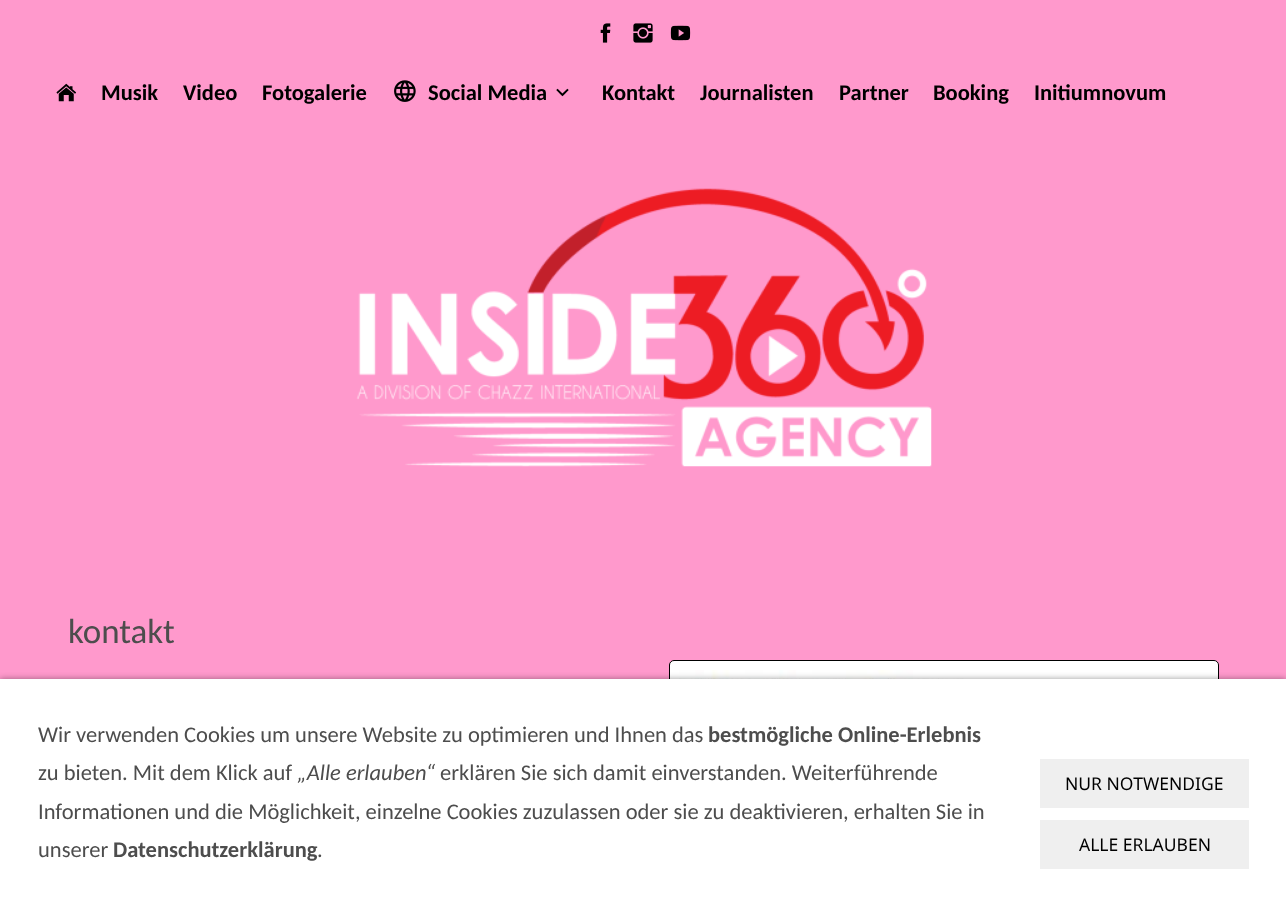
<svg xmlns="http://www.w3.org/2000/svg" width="1286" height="906">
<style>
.a{font:bold 22.5px Carlito;fill:#000}
.b{font:35px Carlito;fill:#4d4d4d}
.c{font:22.5px Carlito;fill:#4d4d4d}
.d{font:bold 22.5px Carlito;fill:#4d4d4d}
.e{font:italic 22.5px Carlito;fill:#4d4d4d}
.f{font:17.5px Noto Sans;fill:#000}
</style>
<rect width="100%" height="100%" fill="#f9c"/>
<image href="1.png" x="600" y="23" width="11" height="20"/>
<image href="2.png" x="633" y="23" width="20" height="20"/>
<image href="3.png" x="670" y="25" width="21" height="16"/>
<image href="4.png" x="56" y="83" width="20" height="19"/>
<image href="5.png" x="556" y="88" width="13" height="9"/>
<image href="6.png" x="394" y="80" width="22" height="22"/>
<image href="7.png" x="356" y="188" width="576" height="279"/>
<rect fill="#fff" stroke="#000" x="669.5" y="660.5" width="549" height="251" rx="4.5"/>
<image href="8.png" x="679" y="670" width="485" height="9"/>
<path fill="#00000066" filter="blur(3px)" d="M0 679h1286v227H0z"/>
<path fill="#fff" d="M0 679h1286v227H0z"/>
<path fill="#efefef" d="M1040 759h209v49H1040z"/>
<path fill="#efefef" d="M1040 820h209v49H1040z"/>
<text class="a" x="101" y="100">Musik</text>
<text class="a" x="183" y="100">Video</text>
<text class="a" x="262" y="100">Fotogalerie</text>
<text class="a" x="428" y="100">Social Media</text>
<text class="a" x="602" y="100">Kontakt</text>
<text class="a" x="700" y="100">Journalisten</text>
<text class="a" x="839" y="100">Partner</text>
<text class="a" x="933" y="100">Booking</text>
<text class="a" x="1034" y="100">Initiumnovum</text>
<text class="b" x="68" y="643">kontakt</text>
<text class="c" x="38" y="742">Wir verwenden Cookies um unsere Website zu optimieren und Ihnen das</text>
<text class="d" x="708" y="742">bestmögliche Online-Erlebnis</text>
<text class="c" x="38" y="780">zu bieten. Mit dem Klick auf</text>
<text class="e" x="297" y="780">„Alle erlauben“</text>
<text class="c" x="440" y="780">erklären Sie sich damit einverstanden. Weiterführende</text>
<text class="c" x="38" y="819">Informationen und die Möglichkeit, einzelne Cookies zuzulassen oder sie zu deaktivieren, erhalten Sie in</text>
<text class="c" x="38" y="857">unserer</text>
<text class="d" x="113" y="857">Datenschutzerklärung</text>
<text class="c" x="317" y="857">.</text>
<text class="f" x="1065" y="790">NUR NOTWENDIGE</text>
<text class="f" x="1079" y="851">ALLE ERLAUBEN</text>
</svg>
